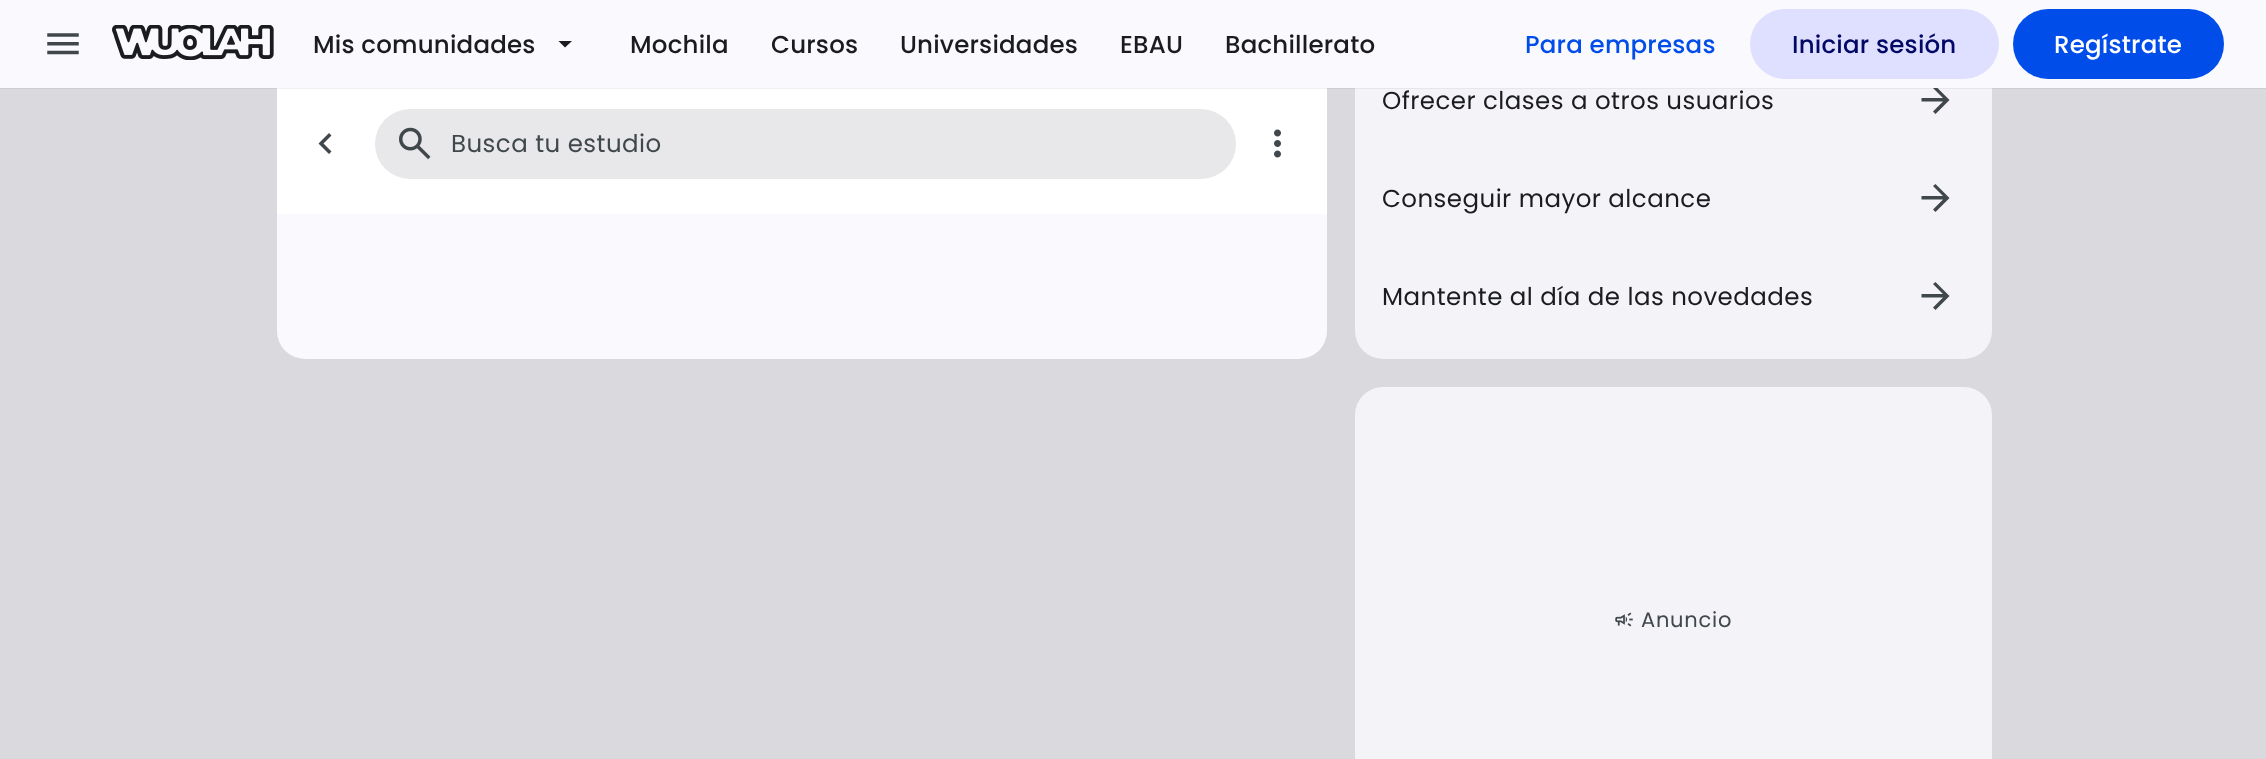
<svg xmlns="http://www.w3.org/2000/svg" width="2266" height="759">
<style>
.a{font:500 24.5px Poppins;letter-spacing:0.2px;fill:#1a1c1e}
.b{font:500 24.5px Poppins;letter-spacing:0.2px;fill:#004dea}
.c{font:500 24.5px Poppins;letter-spacing:0.2px;fill:#010965}
.d{font:500 24.5px Poppins;letter-spacing:0.2px;fill:#fff}
.e{font:24.5px Poppins;letter-spacing:0.45px;fill:#40484c}
.f{font:24.5px Poppins;letter-spacing:0.45px;fill:#1a1c1e}
.g{font:21px Poppins;letter-spacing:0.75px;fill:#40484c}
</style>
<rect width="100%" height="100%" fill="#dad9dd"/>
<rect fill="#faf9fd" x="277" y="-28" width="1050" height="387" rx="28"/>
<path fill="#fff" d="M277 88h1050v126H277z"/>
<rect fill="#f4f3f7" x="1355" y="-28" width="637" height="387" rx="28"/>
<path fill="#40484c" d="M1943 101.5h-21.5v-3.5h21.5l-10-10l2.5-2l14 14l-14 14l-2.5-2.5z"/>
<path fill="none" stroke="#0000000d" stroke-width="2" d="M-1 -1h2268v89H-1z"/>
<path fill="#faf9fd" d="M0 0h2266v88H0z"/>
<image href="1.png" x="47" y="33" width="32" height="22"/>
<image href="2.png" x="112" y="25" width="162" height="35"/>
<path fill="#1a1c1e" d="M565 47.5l-6.5-6.5h13.5z"/>
<rect fill="#dfe0ff" x="1750" y="9" width="249" height="70" rx="35"/>
<rect fill="#004dea" x="2013" y="9" width="211" height="70" rx="35"/>
<path fill="#40484c" d="M329 154l-10.5-10.5l10.5-10.5l2.5 2.5l-8 8l8 8z"/>
<rect fill="#e8e8eb" x="375" y="109" width="861" height="70" rx="35"/>
<image href="3.png" x="399" y="127" width="32" height="33"/>
<image href="4.png" x="1274" y="129" width="7" height="29"/>
<path fill="#40484c" d="M1943 199.5h-21.5v-3.5h21.5l-10-10l2.5-2l14 14l-14 14l-2.5-2.5z"/>
<path fill="#40484c" d="M1943 297.5h-21.5v-3.5h21.5l-10-10l2.5-2l14 14l-14 14l-2.5-2.5z"/>
<rect fill="#f4f3f7" x="1355" y="387" width="637" height="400" rx="28"/>
<image href="5.png" x="1615" y="612" width="18" height="15"/>
<text class="a" x="313" y="53">Mis comunidades</text>
<text class="a" x="630" y="53">Mochila</text>
<text class="a" x="771" y="53">Cursos</text>
<text class="a" x="900" y="53">Universidades</text>
<text class="a" x="1120" y="53">EBAU</text>
<text class="a" x="1225" y="53">Bachillerato</text>
<text class="b" x="1525" y="53">Para empresas</text>
<text class="c" x="1792" y="53">Iniciar sesión</text>
<text class="d" x="2054" y="53">Regístrate</text>
<text class="e" x="451" y="152">Busca tu estudio</text>
<text class="f" x="1382" y="109">Ofrecer clases a otros usuarios</text>
<text class="f" x="1382" y="207">Conseguir mayor alcance</text>
<text class="f" x="1382" y="305">Mantente al día de las novedades</text>
<text class="g" x="1641" y="627">Anuncio</text>
</svg>
